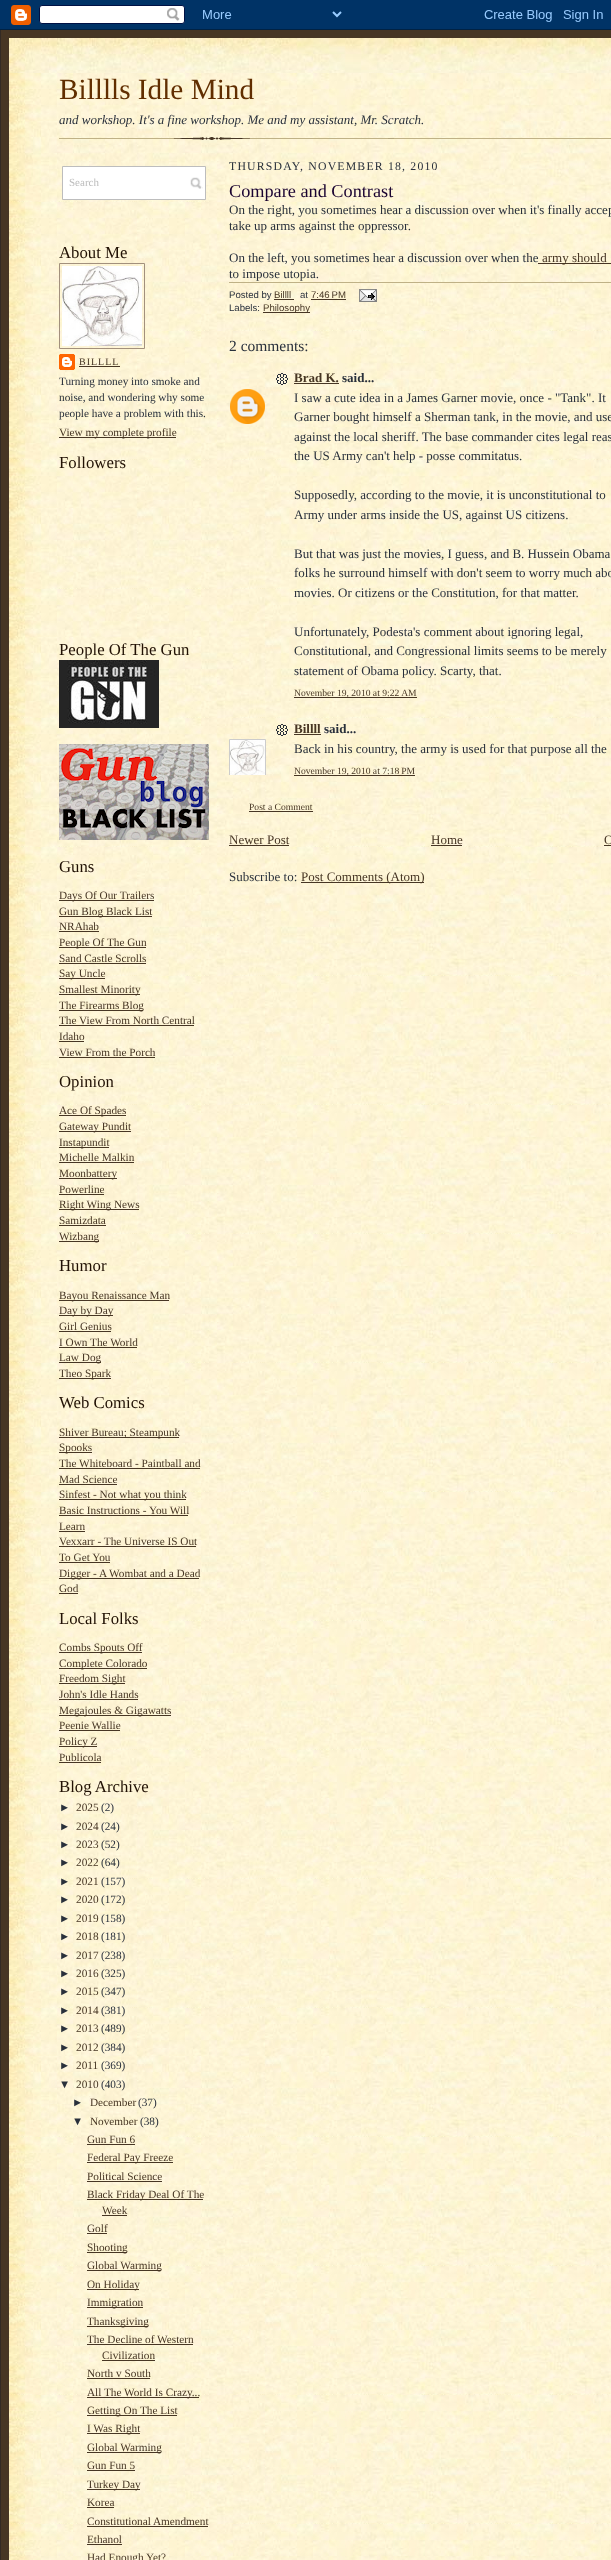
<svg xmlns="http://www.w3.org/2000/svg" width="611" height="2560">
<style>
.a{font:29.25px Liberation Serif;fill:#612e00}
.b{font:italic 13px Liberation Serif;fill:#29303b}
.c{font:11px Liberation Serif;fill:#bdbdbd}
.d{font:16.75px Liberation Serif;fill:#211104}
.e{font:10px Liberation Serif;letter-spacing:1px;fill:#473624}
.f{font:11.25px Liberation Serif;fill:#29303b}
.g{font:11.25px Liberation Serif;fill:#473624}
.h{font:11.25px Liberation Sans;fill:#29303b}
.i{font:11.75px Liberation Serif;letter-spacing:1.2px;fill:#29303b}
.j{font:18.25px Liberation Serif;fill:#1b0431}
.k{font:13px Liberation Serif;fill:#29303b}
.l{font:13px Liberation Serif;fill:#473624}
.m{font:9.6px Liberation Sans;fill:#29303b}
.n{font:9.6px Liberation Sans;fill:#473624}
.o{font:15.5px Liberation Serif;fill:#29303b}
.p{font:bold 13px Liberation Serif;fill:#473624}
.q{font:bold 13px Liberation Serif;fill:#29303b}
.r{font:9.6px Liberation Serif;fill:#473624}
</style>
<defs>
<clipPath id="clip1"><path d="M229 739h37v36H229z"/></clipPath>
</defs>
<rect width="100%" height="100%" fill="#473624"/>
<image href="1.png" x="0" y="0" width="611" height="30"/>
<path fill="#332a24" d="M0 30h1v2530H0z"/>
<image href="2.png" x="9" y="38" width="602" height="35"/>
<image href="3.png" x="9" y="73" width="602" height="2487"/>
<image href="4.png" x="59" y="137" width="552" height="3"/>
<path fill="#fff" d="M63 167h142v32H63z"/>
<image href="5.png" x="190" y="177" width="13" height="12"/>
<path fill="none" stroke="#bdbdbd" d="M62.5 166.5h143v33H62.5z"/>
<path fill="none" stroke="#a2907d" d="M59.5 263.5h85v85H59.5z"/>
<image href="6.png" x="62" y="266" width="80" height="80"/>
<image href="7.png" x="59" y="354" width="16" height="16"/>
<path fill="#473624" d="M79 366h41v1H79z"/>
<path fill="#473624" d="M59 437h117v1H59z"/>
<image href="8.png" x="59" y="660" width="100" height="68"/>
<image href="9.png" x="59" y="744" width="150" height="96"/>
<path fill="#473624" d="M59 900h95v1H59z"/>
<path fill="#473624" d="M59 916h93v1H59z"/>
<path fill="#473624" d="M59 931h40v1H59z"/>
<path fill="#473624" d="M59 947h87v1H59z"/>
<path fill="#473624" d="M59 963h87v1H59z"/>
<path fill="#473624" d="M59 978h46v1H59z"/>
<path fill="#473624" d="M59 994h81v1H59z"/>
<path fill="#473624" d="M59 1010h84v1H59z"/>
<path fill="#473624" d="M59 1025h135v1H59z"/>
<path fill="#473624" d="M59 1041h25v1H59z"/>
<path fill="#473624" d="M59 1057h96v1H59z"/>
<path fill="#473624" d="M59 1115h67v1H59z"/>
<path fill="#473624" d="M59 1131h72v1H59z"/>
<path fill="#473624" d="M59 1147h50v1H59z"/>
<path fill="#473624" d="M59 1162h75v1H59z"/>
<path fill="#473624" d="M59 1178h58v1H59z"/>
<path fill="#473624" d="M59 1194h45v1H59z"/>
<path fill="#473624" d="M59 1209h80v1H59z"/>
<path fill="#473624" d="M59 1225h47v1H59z"/>
<path fill="#473624" d="M59 1241h40v1H59z"/>
<path fill="#473624" d="M59 1300h110v1H59z"/>
<path fill="#473624" d="M59 1315h54v1H59z"/>
<path fill="#473624" d="M59 1331h52v1H59z"/>
<path fill="#473624" d="M59 1347h78v1H59z"/>
<path fill="#473624" d="M59 1362h42v1H59z"/>
<path fill="#473624" d="M59 1378h52v1H59z"/>
<path fill="#473624" d="M59 1437h120v1H59z"/>
<path fill="#473624" d="M59 1452h33v1H59z"/>
<path fill="#473624" d="M59 1468h141v1H59z"/>
<path fill="#473624" d="M59 1484h58v1H59z"/>
<path fill="#473624" d="M59 1499h127v1H59z"/>
<path fill="#473624" d="M59 1515h129v1H59z"/>
<path fill="#473624" d="M59 1531h26v1H59z"/>
<path fill="#473624" d="M59 1546h137v1H59z"/>
<path fill="#473624" d="M59 1562h51v1H59z"/>
<path fill="#473624" d="M59 1578h140v1H59z"/>
<path fill="#473624" d="M59 1593h19v1H59z"/>
<path fill="#473624" d="M59 1652h83v1H59z"/>
<path fill="#473624" d="M59 1668h88v1H59z"/>
<path fill="#473624" d="M59 1683h66v1H59z"/>
<path fill="#473624" d="M59 1699h79v1H59z"/>
<path fill="#473624" d="M59 1715h112v1H59z"/>
<path fill="#473624" d="M59 1730h61v1H59z"/>
<path fill="#473624" d="M59 1746h38v1H59z"/>
<path fill="#473624" d="M59 1762h42v1H59z"/>
<path fill="#473624" d="M87 2144h48v1H87z"/>
<path fill="#473624" d="M87 2162h86v1H87z"/>
<path fill="#473624" d="M87 2181h75v1H87z"/>
<path fill="#473624" d="M87 2199h116v1H87z"/>
<path fill="#473624" d="M102 2215h25v1H102z"/>
<path fill="#473624" d="M87 2233h20v1H87z"/>
<path fill="#473624" d="M87 2252h40v1H87z"/>
<path fill="#473624" d="M87 2270h74v1H87z"/>
<path fill="#473624" d="M87 2289h52v1H87z"/>
<path fill="#473624" d="M87 2307h56v1H87z"/>
<path fill="#473624" d="M87 2326h61v1H87z"/>
<path fill="#473624" d="M87 2344h106v1H87z"/>
<path fill="#473624" d="M102 2360h53v1H102z"/>
<path fill="#473624" d="M87 2378h63v1H87z"/>
<path fill="#473624" d="M87 2397h112v1H87z"/>
<path fill="#473624" d="M87 2415h90v1H87z"/>
<path fill="#473624" d="M87 2433h53v1H87z"/>
<path fill="#473624" d="M87 2452h74v1H87z"/>
<path fill="#473624" d="M87 2470h48v1H87z"/>
<path fill="#473624" d="M87 2489h53v1H87z"/>
<path fill="#473624" d="M87 2507h27v1H87z"/>
<path fill="#473624" d="M87 2526h121v1H87z"/>
<path fill="#473624" d="M87 2544h35v1H87z"/>
<path fill="#473624" d="M538 263h73v1H538z"/>
<path fill="#bfb186" d="M229 282h382v1H229z"/>
<path fill="#473624" d="M274 299h20v1H274z"/>
<path fill="#473624" d="M311 299h35v1H311z"/>
<image href="10.png" x="359" y="289" width="18" height="13"/>
<path fill="#473624" d="M263 312h47v1H263z"/>
<image href="11.png" x="276" y="373" width="12" height="12"/>
<path fill="#473624" d="M294 383h45v1H294z"/>
<image href="12.png" x="230" y="389" width="35" height="35"/>
<path fill="#473624" d="M294 697h123v1H294z"/>
<image href="13.png" x="276" y="724" width="12" height="12"/>
<path fill="#473624" d="M294 734h27v1H294z"/>
<g clip-path="url(#clip1)">
<path fill="none" stroke="#ccc" d="M229.5 739.5h36v36H229.5z"/>
</g>
<image href="14.png" x="230" y="740" width="35" height="35"/>
<path fill="#473624" d="M294 775h121v1H294z"/>
<path fill="#473624" d="M249 811h64v1H249z"/>
<path fill="#473624" d="M229 845h60v1H229z"/>
<path fill="#473624" d="M431 845h31v1H431z"/>
<path fill="#473624" d="M604 845h7v1H604z"/>
<path fill="#473624" d="M301 882h123v1H301z"/>
<text class="a" x="59" y="99">Billlls Idle Mind</text>
<text class="b" x="59" y="124">and workshop. It's a fine workshop. Me and my assistant, Mr. Scratch.</text>
<text class="c" x="69" y="186">Search</text>
<text class="d" x="59" y="258">About Me</text>
<text class="e" x="79" y="365">BILLLL</text>
<text class="f" x="59" y="385">Turning money into smoke and</text>
<text class="f" x="59" y="401">noise, and wondering why some</text>
<text class="f" x="59" y="417">people have a problem with this.</text>
<text class="g" x="59" y="436">View my complete profile</text>
<text class="d" x="59" y="468">Followers</text>
<text class="d" x="59" y="655">People Of The Gun</text>
<text class="d" x="59" y="872">Guns</text>
<text class="g" x="59" y="899">Days Of Our Trailers</text>
<text class="g" x="59" y="915">Gun Blog Black List</text>
<text class="g" x="59" y="930">NRAhab</text>
<text class="g" x="59" y="946">People Of The Gun</text>
<text class="g" x="59" y="962">Sand Castle Scrolls</text>
<text class="g" x="59" y="977">Say Uncle</text>
<text class="g" x="59" y="993">Smallest Minority</text>
<text class="g" x="59" y="1009">The Firearms Blog</text>
<text class="g" x="59" y="1024">The View From North Central</text>
<text class="g" x="59" y="1040">Idaho</text>
<text class="g" x="59" y="1056">View From the Porch</text>
<text class="d" x="59" y="1087">Opinion</text>
<text class="g" x="59" y="1114">Ace Of Spades</text>
<text class="g" x="59" y="1130">Gateway Pundit</text>
<text class="g" x="59" y="1146">Instapundit</text>
<text class="g" x="59" y="1161">Michelle Malkin</text>
<text class="g" x="59" y="1177">Moonbattery</text>
<text class="g" x="59" y="1193">Powerline</text>
<text class="g" x="59" y="1208">Right Wing News</text>
<text class="g" x="59" y="1224">Samizdata</text>
<text class="g" x="59" y="1240">Wizbang</text>
<text class="d" x="59" y="1271">Humor</text>
<text class="g" x="59" y="1299">Bayou Renaissance Man</text>
<text class="g" x="59" y="1314">Day by Day</text>
<text class="g" x="59" y="1330">Girl Genius</text>
<text class="g" x="59" y="1346">I Own The World</text>
<text class="g" x="59" y="1361">Law Dog</text>
<text class="g" x="59" y="1377">Theo Spark</text>
<text class="d" x="59" y="1408">Web Comics</text>
<text class="g" x="59" y="1436">Shiver Bureau; Steampunk</text>
<text class="g" x="59" y="1451">Spooks</text>
<text class="g" x="59" y="1467">The Whiteboard - Paintball and</text>
<text class="g" x="59" y="1483">Mad Science</text>
<text class="g" x="59" y="1498">Sinfest - Not what you think</text>
<text class="g" x="59" y="1514">Basic Instructions - You Will</text>
<text class="g" x="59" y="1530">Learn</text>
<text class="g" x="59" y="1545">Vexxarr - The Universe IS Out</text>
<text class="g" x="59" y="1561">To Get You</text>
<text class="g" x="59" y="1577">Digger - A Wombat and a Dead</text>
<text class="g" x="59" y="1592">God</text>
<text class="d" x="59" y="1624">Local Folks</text>
<text class="g" x="59" y="1651">Combs Spouts Off</text>
<text class="g" x="59" y="1667">Complete Colorado</text>
<text class="g" x="59" y="1682">Freedom Sight</text>
<text class="g" x="59" y="1698">John's Idle Hands</text>
<text class="g" x="59" y="1714">Megajoules &amp; Gigawatts</text>
<text class="g" x="59" y="1729">Peenie Wallie</text>
<text class="g" x="59" y="1745">Policy Z</text>
<text class="g" x="59" y="1761">Publicola</text>
<text class="d" x="59" y="1792">Blog Archive</text>
<text class="h" x="59" y="1811">►</text>
<text class="g" x="76" y="1811">2025</text>
<text class="f" x="101" y="1811">(2)</text>
<text class="h" x="59" y="1830">►</text>
<text class="g" x="76" y="1830">2024</text>
<text class="f" x="101" y="1830">(24)</text>
<text class="h" x="59" y="1848">►</text>
<text class="g" x="76" y="1848">2023</text>
<text class="f" x="101" y="1848">(52)</text>
<text class="h" x="59" y="1866">►</text>
<text class="g" x="76" y="1866">2022</text>
<text class="f" x="101" y="1866">(64)</text>
<text class="h" x="59" y="1885">►</text>
<text class="g" x="76" y="1885">2021</text>
<text class="f" x="101" y="1885">(157)</text>
<text class="h" x="59" y="1903">►</text>
<text class="g" x="76" y="1903">2020</text>
<text class="f" x="101" y="1903">(172)</text>
<text class="h" x="59" y="1922">►</text>
<text class="g" x="76" y="1922">2019</text>
<text class="f" x="101" y="1922">(158)</text>
<text class="h" x="59" y="1940">►</text>
<text class="g" x="76" y="1940">2018</text>
<text class="f" x="101" y="1940">(181)</text>
<text class="h" x="59" y="1959">►</text>
<text class="g" x="76" y="1959">2017</text>
<text class="f" x="101" y="1959">(238)</text>
<text class="h" x="59" y="1977">►</text>
<text class="g" x="76" y="1977">2016</text>
<text class="f" x="101" y="1977">(325)</text>
<text class="h" x="59" y="1995">►</text>
<text class="g" x="76" y="1995">2015</text>
<text class="f" x="101" y="1995">(347)</text>
<text class="h" x="59" y="2014">►</text>
<text class="g" x="76" y="2014">2014</text>
<text class="f" x="101" y="2014">(381)</text>
<text class="h" x="59" y="2032">►</text>
<text class="g" x="76" y="2032">2013</text>
<text class="f" x="101" y="2032">(489)</text>
<text class="h" x="59" y="2051">►</text>
<text class="g" x="76" y="2051">2012</text>
<text class="f" x="101" y="2051">(384)</text>
<text class="h" x="59" y="2069">►</text>
<text class="g" x="76" y="2069">2011</text>
<text class="f" x="101" y="2069">(369)</text>
<text class="h" x="59" y="2088">▼</text>
<text class="g" x="76" y="2088">2010</text>
<text class="f" x="101" y="2088">(403)</text>
<text class="h" x="72" y="2106">►</text>
<text class="g" x="90" y="2106">December</text>
<text class="f" x="138" y="2106">(37)</text>
<text class="h" x="72" y="2125">▼</text>
<text class="g" x="90" y="2125">November</text>
<text class="f" x="140" y="2125">(38)</text>
<text class="g" x="87" y="2143">Gun Fun 6</text>
<text class="g" x="87" y="2161">Federal Pay Freeze</text>
<text class="g" x="87" y="2180">Political Science</text>
<text class="g" x="87" y="2198">Black Friday Deal Of The</text>
<text class="g" x="102" y="2214">Week</text>
<text class="g" x="87" y="2232">Golf</text>
<text class="g" x="87" y="2251">Shooting</text>
<text class="g" x="87" y="2269">Global Warming</text>
<text class="g" x="87" y="2288">On Holiday</text>
<text class="g" x="87" y="2306">Immigration</text>
<text class="g" x="87" y="2325">Thanksgiving</text>
<text class="g" x="87" y="2343">The Decline of Western</text>
<text class="g" x="102" y="2359">Civilization</text>
<text class="g" x="87" y="2377">North v South</text>
<text class="g" x="87" y="2396">All The World Is Crazy...</text>
<text class="g" x="87" y="2414">Getting On The List</text>
<text class="g" x="87" y="2432">I Was Right</text>
<text class="g" x="87" y="2451">Global Warming</text>
<text class="g" x="87" y="2469">Gun Fun 5</text>
<text class="g" x="87" y="2488">Turkey Day</text>
<text class="g" x="87" y="2506">Korea</text>
<text class="g" x="87" y="2525">Constitutional Amendment</text>
<text class="g" x="87" y="2543">Ethanol</text>
<text class="g" x="87" y="2561">Had Enough Yet?</text>
<text class="i" x="229" y="170">THURSDAY, NOVEMBER 18, 2010</text>
<text class="j" x="229" y="197">Compare and Contrast</text>
<text class="k" x="229" y="214">On the right, you sometimes hear a discussion over when it's finally accep</text>
<text class="k" x="229" y="230">take up arms against the oppressor.</text>
<text class="k" x="229" y="262">On the left, you sometimes hear a discussion over when the</text>
<text class="l" x="542" y="262">army should</text>
<text class="k" x="229" y="278">to impose utopia.</text>
<text class="m" x="229" y="298">Posted by</text>
<text class="n" x="274" y="298">Billll</text>
<text class="m" x="300" y="298">at</text>
<text class="n" x="311" y="298">7:46 PM</text>
<text class="m" x="229" y="311">Labels:</text>
<text class="n" x="263" y="311">Philosophy</text>
<text class="o" x="229" y="351">2 comments:</text>
<text class="p" x="294" y="382">Brad K.</text>
<text class="q" x="342" y="382">said...</text>
<text class="k" x="294" y="402">I saw a cute idea in a James Garner movie, once - "Tank". It</text>
<text class="k" x="294" y="421">Garner bought himself a Sherman tank, in the movie, and use</text>
<text class="k" x="294" y="441">against the local sheriff. The base commander cites legal reas</text>
<text class="k" x="294" y="460">the US Army can't help - posse commitatus.</text>
<text class="k" x="294" y="499">Supposedly, according to the movie, it is unconstitutional to</text>
<text class="k" x="294" y="519">Army under arms inside the US, against US citizens.</text>
<text class="k" x="294" y="558">But that was just the movies, I guess, and B. Hussein Obama</text>
<text class="k" x="294" y="577">folks he surround himself with don't seem to worry much abo</text>
<text class="k" x="294" y="597">movies. Or citizens or the Constitution, for that matter.</text>
<text class="k" x="294" y="636">Unfortunately, Podesta's comment about ignoring legal,</text>
<text class="k" x="294" y="655">Constitutional, and Congressional limits seems to be merely</text>
<text class="k" x="294" y="675">statement of Obama policy. Scarty, that.</text>
<text class="r" x="294" y="696">November 19, 2010 at 9:22 AM</text>
<text class="p" x="294" y="733">Billll</text>
<text class="q" x="324" y="733">said...</text>
<text class="k" x="294" y="753">Back in his country, the army is used for that purpose all the</text>
<text class="r" x="294" y="774">November 19, 2010 at 7:18 PM</text>
<text class="r" x="249" y="810">Post a Comment</text>
<text class="l" x="229" y="844">Newer Post</text>
<text class="l" x="431" y="844">Home</text>
<text class="l" x="604" y="844">O</text>
<text class="k" x="229" y="881">Subscribe to:</text>
<text class="l" x="301" y="881">Post Comments (Atom)</text>
</svg>
